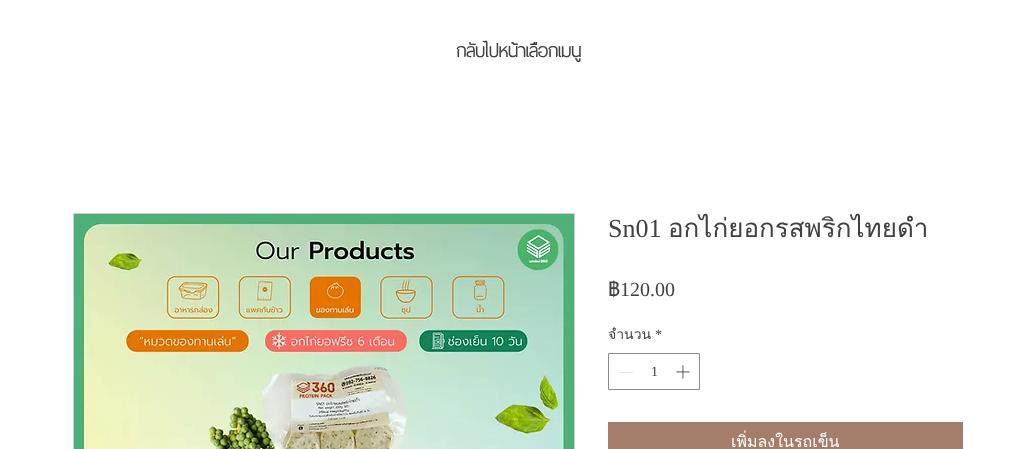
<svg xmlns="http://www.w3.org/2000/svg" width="1036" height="449">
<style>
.a{font:bold 25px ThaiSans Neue;fill:#404041}
.b{font:26px Liberation Serif;fill:#404041}
.c{font:26px Loma;fill:#404041}
.d{font:20px Loma;fill:#404041}
.e{font:20px Liberation Serif;fill:#404041}
.f{font:14px Loma;fill:#404041}
.g{font:14px Liberation Serif;fill:#404041}
.h{font:16px Loma;fill:#fff}
</style>
<rect width="100%" height="100%" fill="#fff"/>
<path fill="none" stroke="#cececf" d="M73.5 213.5h501v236H73.5z"/>
<image href="1.png" x="74" y="214" width="500" height="235"/>
<path fill="none" stroke="#8c8c8d" d="M608.5 353.5h91v36H608.5z"/>
<path fill="#e3e3e3" d="M620 372h13v1H620z"/>
<image href="2.png" x="676" y="365" width="14" height="14"/>
<path fill="#a57d6b" d="M608 422h355v27H608z"/>
<text class="a" x="456" y="57">กลับไปหน้าเลือกเมนู</text>
<text class="b" x="608" y="237">Sn01</text>
<text class="c" x="668" y="237">อกไก่ยอกรสพริกไทยดำ</text>
<text class="d" x="608" y="296">฿</text>
<text class="e" x="620" y="296">120.00</text>
<text class="f" x="608" y="339">จำนวน</text>
<text class="g" x="655" y="339">*</text>
<text class="g" x="651" y="376">1</text>
<text class="h" x="731" y="447">เพิ่มลงในรถเข็น</text>
</svg>
